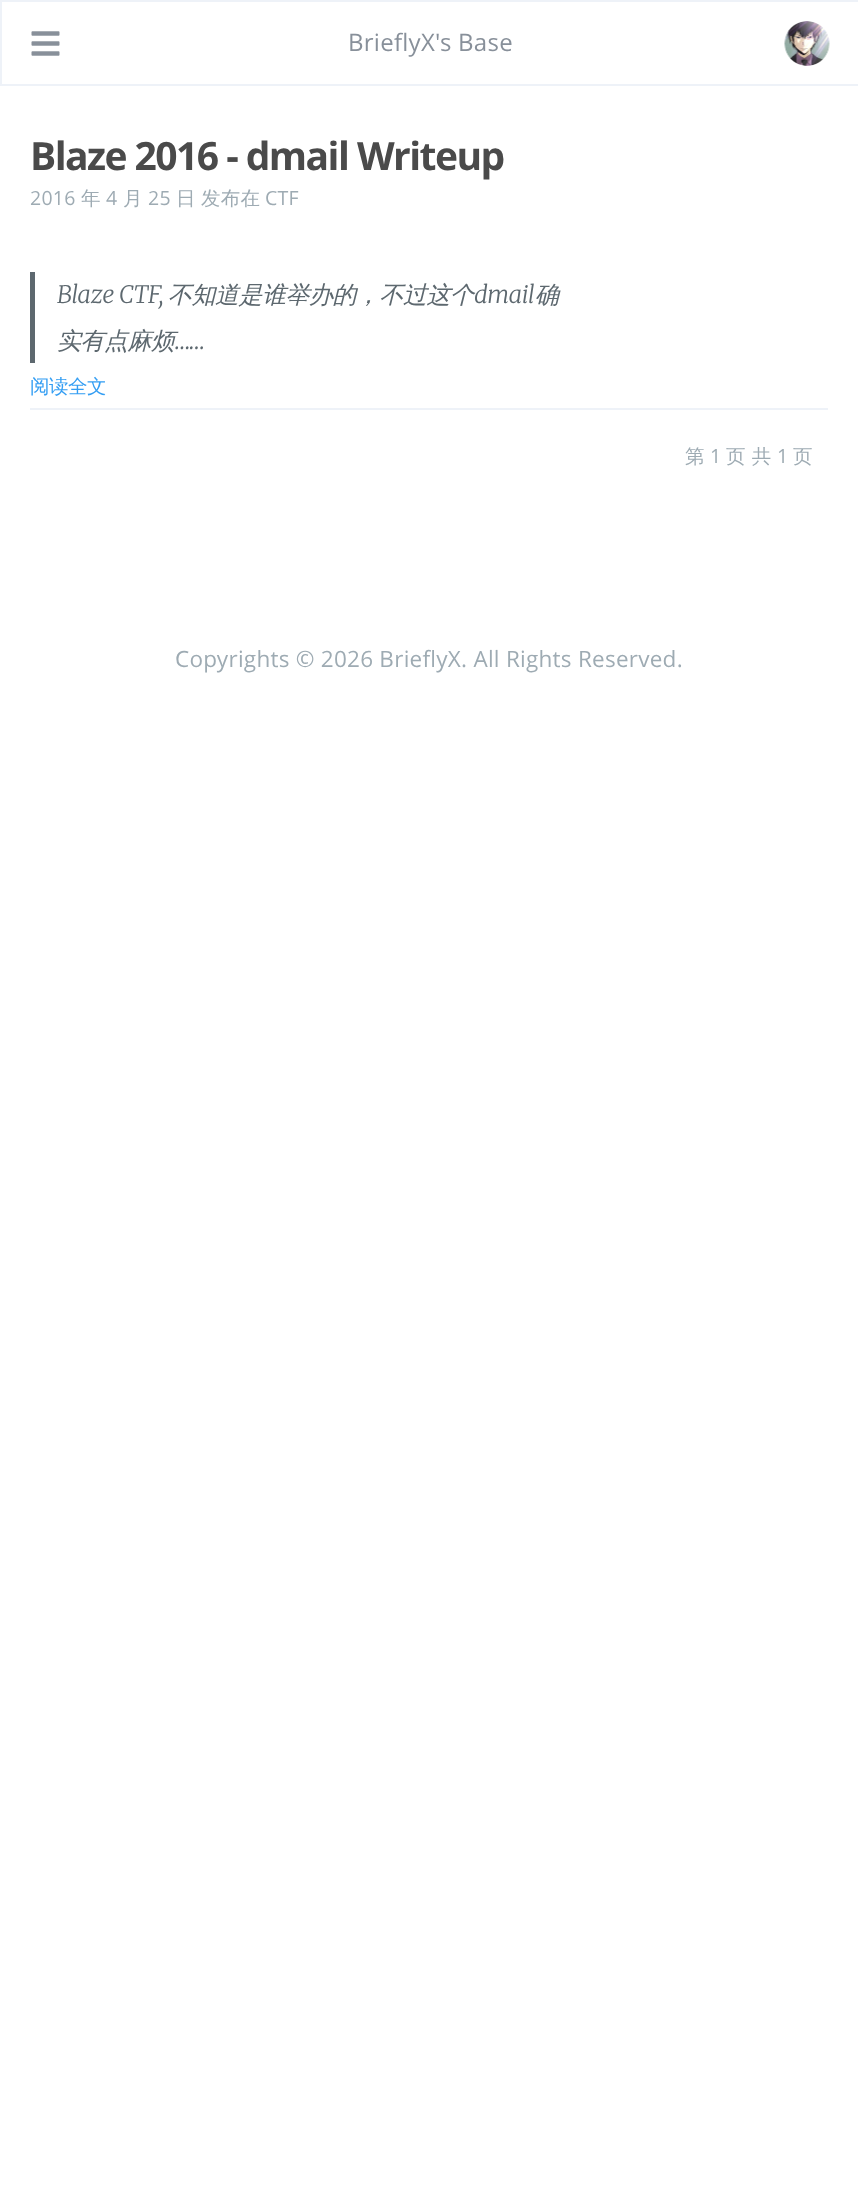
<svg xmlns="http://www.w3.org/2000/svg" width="858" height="2202">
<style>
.a{font:24px Open Sans;letter-spacing:0.25px;fill:#88909a}
.b{font:bold 39px Open Sans;letter-spacing:-1.55px;fill:#4a4a4a}
.c{font:19.5px Open Sans;letter-spacing:0.25px;fill:#9eabb3}
.d{font:500 19.5px WenQuanYi Zen Hei;letter-spacing:0.25px;fill:#9eabb3}
.e{font:italic 300 24px Merriweather;letter-spacing:-0.5px;fill:#5d686f}
.f{font:italic 500 24px WenQuanYi Zen Hei;letter-spacing:-0.5px;fill:#5d686f}
.g{font:500 19.5px WenQuanYi Zen Hei;letter-spacing:-0.5px;fill:#349ef3}
.h{font:22.5px Open Sans;letter-spacing:0.25px;fill:#9eabb3}
</style>
<rect width="100%" height="100%" fill="#fff"/>
<path fill="none" stroke="#eef2f8" stroke-width="2" d="M1 1h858v84H1z"/>
<image href="1.png" x="31" y="31" width="29" height="25"/>
<image href="2.png" x="784" y="21" width="46" height="45"/>
<path fill="#eef2f8" d="M30 408h798v2H30z"/>
<path fill="#5d686f" d="M30 272h5v91H30z"/>
<text class="a" x="348" y="51">BrieflyX's Base</text>
<text class="b" x="30" y="170">Blaze 2016 - dmail Writeup</text>
<text class="c" x="30" y="205">2016</text>
<text class="d" x="81" y="205">年</text>
<text class="c" x="106" y="205">4</text>
<text class="d" x="123" y="205">月</text>
<text class="c" x="148" y="205">25</text>
<text class="d" x="176" y="205">日</text>
<text class="d" x="201" y="205">发布在</text>
<text class="c" x="265" y="205">CTF</text>
<text class="e" x="57" y="303">Blaze CTF,</text>
<text class="f" x="168" y="303">不知道是谁举办的，不过这个</text>
<text class="e" x="474" y="303">dmail</text>
<text class="f" x="535" y="303">确</text>
<text class="f" x="57" y="349">实有点麻烦</text>
<text class="e" x="175" y="349">……</text>
<text class="g" x="30" y="393">阅读全文</text>
<text class="d" x="685" y="463">第</text>
<text class="c" x="710" y="463">1</text>
<text class="d" x="726" y="463">页 共</text>
<text class="c" x="777" y="463">1</text>
<text class="d" x="793" y="463">页</text>
<text class="h" x="175" y="667">Copyrights © 2026 BrieflyX. All Rights Reserved.</text>
</svg>
